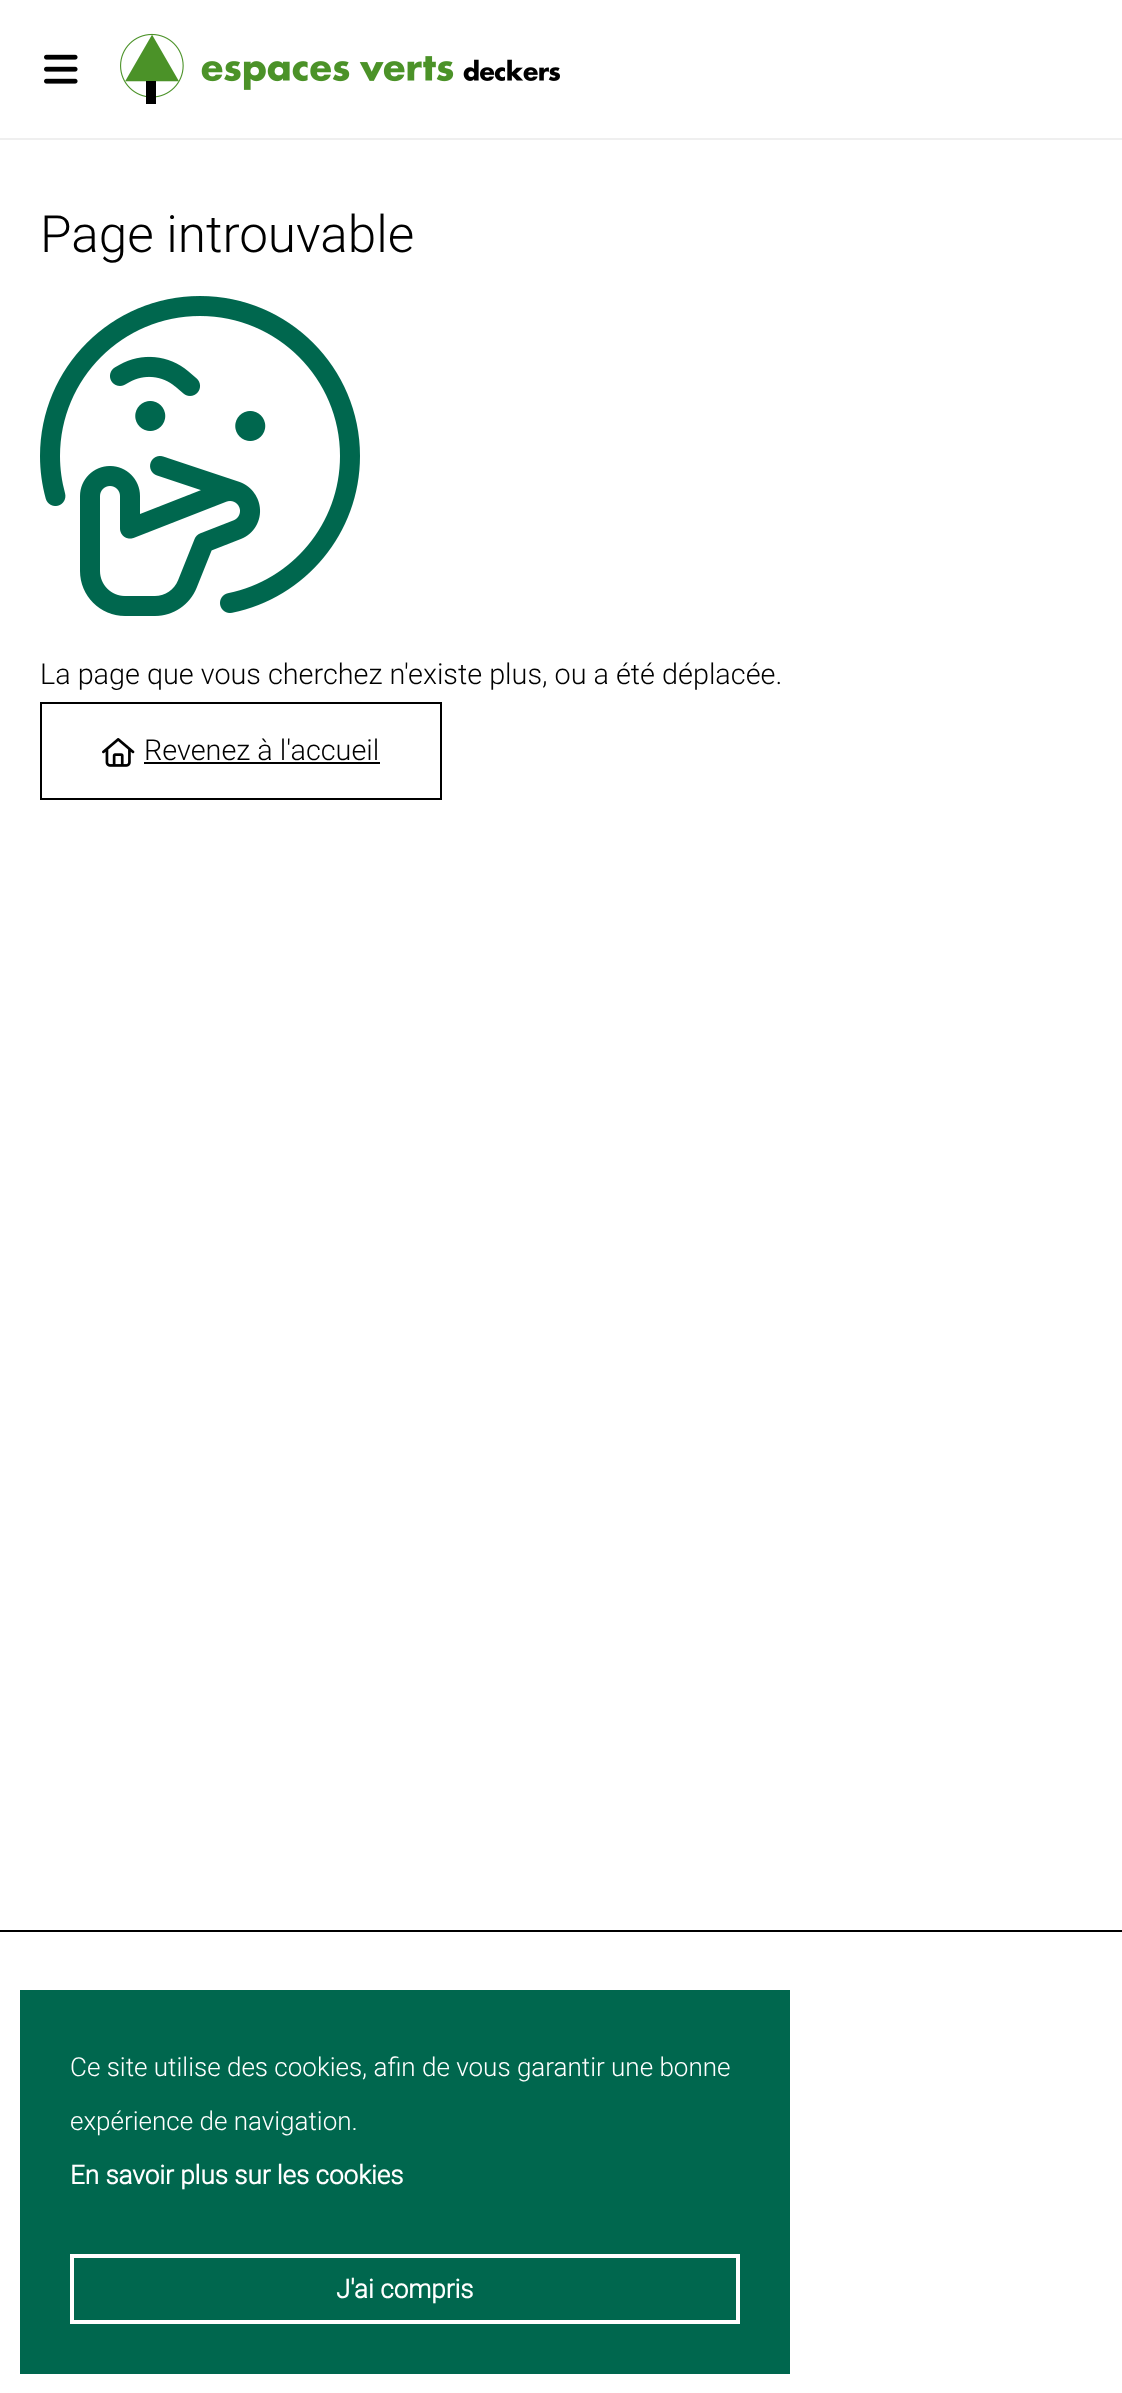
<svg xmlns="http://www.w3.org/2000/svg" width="1122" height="2393">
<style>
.a{font:300 51.25px Roboto;fill:#000}
.b{font:300 28.8px Roboto;fill:#000}
.c{font:300 26px Roboto;fill:#fff}
.d{font:bold 26px Roboto;fill:#fff}
</style>
<rect width="100%" height="100%" fill="#fff"/>
<path fill="#efefef" d="M0 138h1122v2H0z"/>
<image href="1.png" x="44" y="54" width="34" height="30"/>
<image href="2.png" x="120" y="33" width="440" height="71"/>
<image href="3.png" x="40" y="296" width="320" height="320"/>
<path fill="none" stroke="#000" stroke-width="2" d="M41 703h400v96H41z"/>
<image href="4.png" x="102" y="738" width="33" height="29"/>
<path fill="#000" d="M144 762h236v2H144z"/>
<path fill="#000" d="M0 1930h1122v2H0z"/>
<path fill="#00674e" d="M20 1990h770v384H20z"/>
<path fill="none" stroke="#fff" stroke-width="4" d="M72 2256h666v66H72z"/>
<text class="a" x="40" y="252">Page introuvable</text>
<text class="b" x="40" y="684">La page que vous cherchez n'existe plus, ou a été déplacée.</text>
<text class="b" x="144" y="760">Revenez à l'accueil</text>
<text class="c" x="70" y="2076">Ce site utilise des cookies, afin de vous garantir une bonne</text>
<text class="c" x="70" y="2130">expérience de navigation.</text>
<text class="d" x="70" y="2184">En savoir plus sur les cookies</text>
<text class="d" x="336" y="2298">J'ai compris</text>
</svg>
